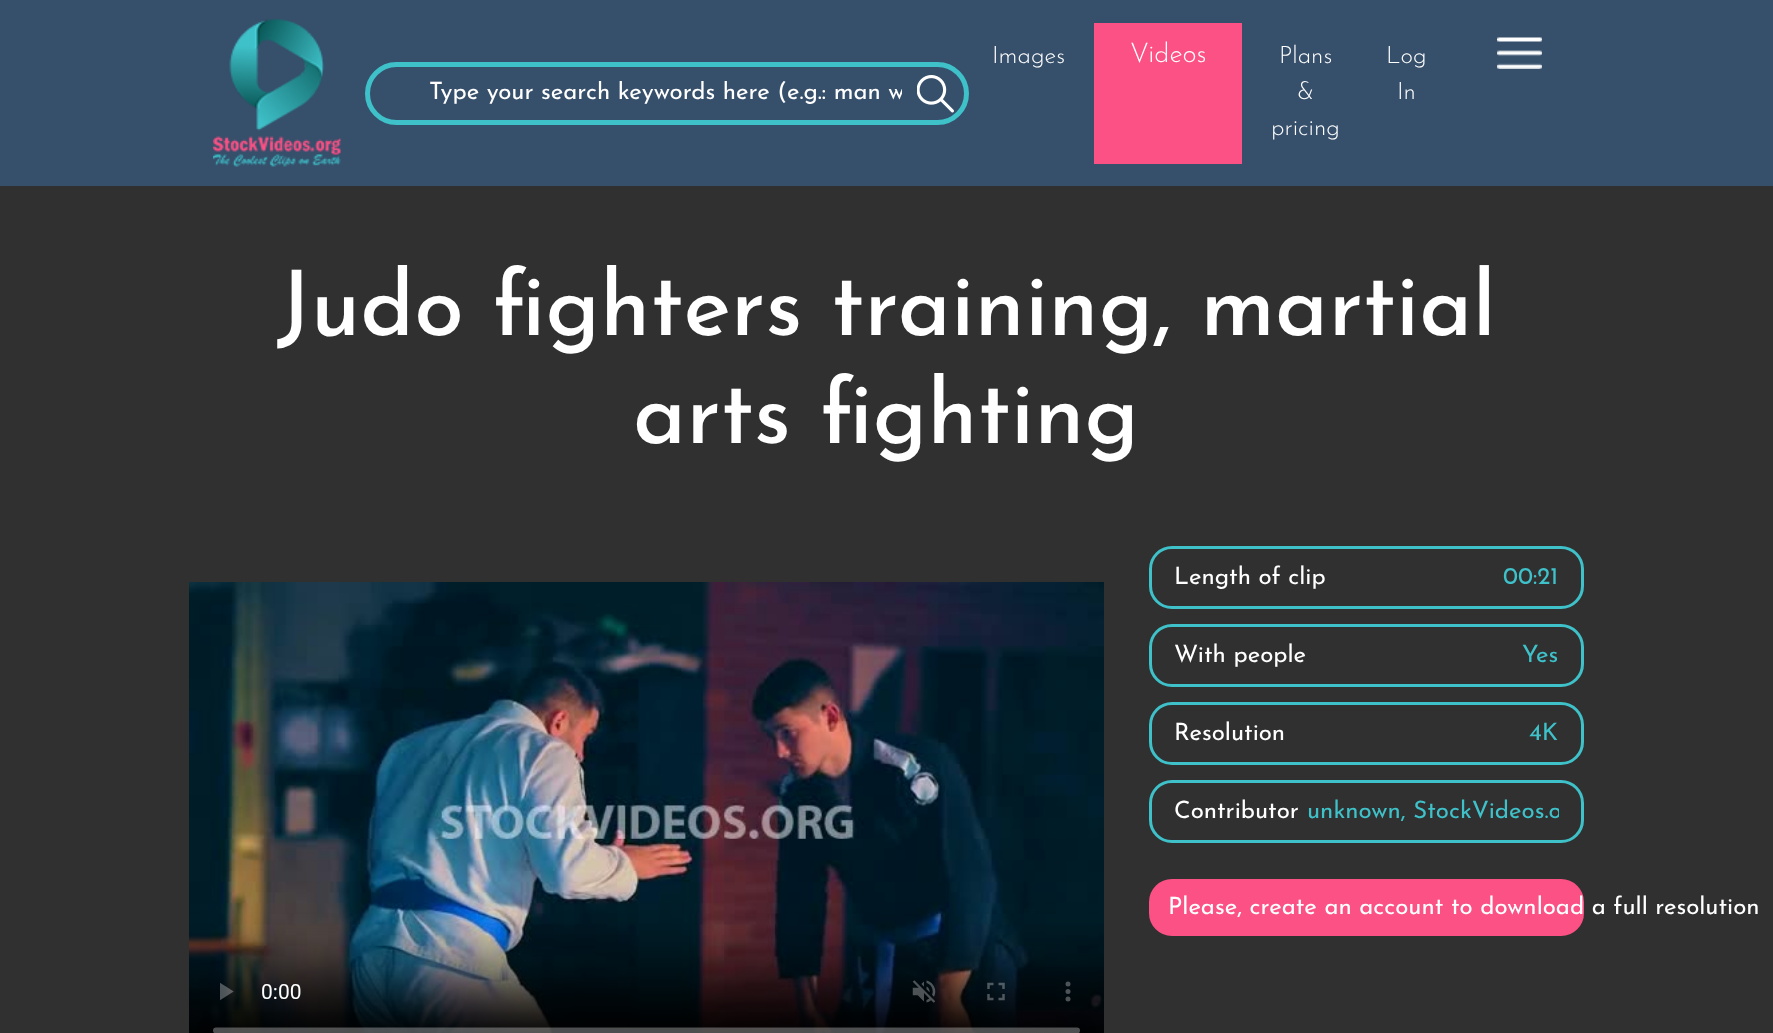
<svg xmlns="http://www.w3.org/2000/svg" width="1773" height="1033">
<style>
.a{font:24px Josefin Sans;fill:#fff}
.b{font:300 24px Josefin Sans;fill:#fff}
.c{font:300 27px Josefin Sans;fill:#fff}
.d{font:500 90px Josefin Sans;fill:#fff}
.e{font:24px Josefin Sans;fill:#3fc1c9}
</style>
<defs>
<clipPath id="clip1"><path d="M429 81h473v24H429z"/></clipPath>
<clipPath id="clip2"><path d="M1299 794h260v36H1299z"/></clipPath>
</defs>
<rect width="100%" height="100%" fill="#303030"/>
<path fill="#364f6b" d="M0 0h1773v186H0z"/>
<image href="1.png" x="213" y="19" width="128" height="148"/>
<image href="2.png" x="917" y="75" width="37" height="38"/>
<rect fill="none" stroke="#3fc1c9" stroke-width="5" x="367.5" y="64.5" width="599" height="58" rx="29"/>
<path fill="#fc5185" d="M1094 23h148v141H1094z"/>
<image href="3.png" x="1497" y="37" width="45" height="32"/>
<image href="4.png" x="189" y="582" width="915" height="451"/>
<rect fill="none" stroke="#3fc1c9" stroke-width="3" x="1150.5" y="547.5" width="432" height="60" rx="21.5"/>
<rect fill="none" stroke="#3fc1c9" stroke-width="3" x="1150.5" y="625.5" width="432" height="60" rx="21.5"/>
<rect fill="none" stroke="#3fc1c9" stroke-width="3" x="1150.5" y="703.5" width="432" height="60" rx="21.5"/>
<rect fill="none" stroke="#3fc1c9" stroke-width="3" x="1150.5" y="781.5" width="432" height="60" rx="21.5"/>
<rect fill="#fc5185" stroke="#fc5185" stroke-width="2" x="1150" y="880" width="433" height="55" rx="22"/>
<g clip-path="url(#clip1)">
<text class="a" x="429" y="99">Type your search keywords here (e.g.: man w</text>
</g>
<text class="b" x="992" y="63">Images</text>
<text class="c" x="1130" y="62">Videos</text>
<text class="b" x="1279" y="63">Plans</text>
<text class="b" x="1297" y="99">&amp;</text>
<text class="b" x="1271" y="135">pricing</text>
<text class="b" x="1386" y="63">Log</text>
<text class="b" x="1397" y="99">In</text>
<text class="d" x="277" y="335">Judo fighters training, martial</text>
<text class="d" x="633" y="443">arts fighting</text>
<text class="a" x="1174" y="584">Length of clip</text>
<text class="e" x="1503" y="584">00:21</text>
<text class="a" x="1174" y="662">With people</text>
<text class="e" x="1522" y="662">Yes</text>
<text class="a" x="1174" y="740">Resolution</text>
<text class="e" x="1529" y="740">4K</text>
<text class="a" x="1174" y="818">Contributor</text>
<g clip-path="url(#clip2)">
<text class="e" x="1307" y="818">unknown, StockVideos.o</text>
</g>
<text class="a" x="1168" y="914">Please, create an account to download a full resolution</text>
</svg>
